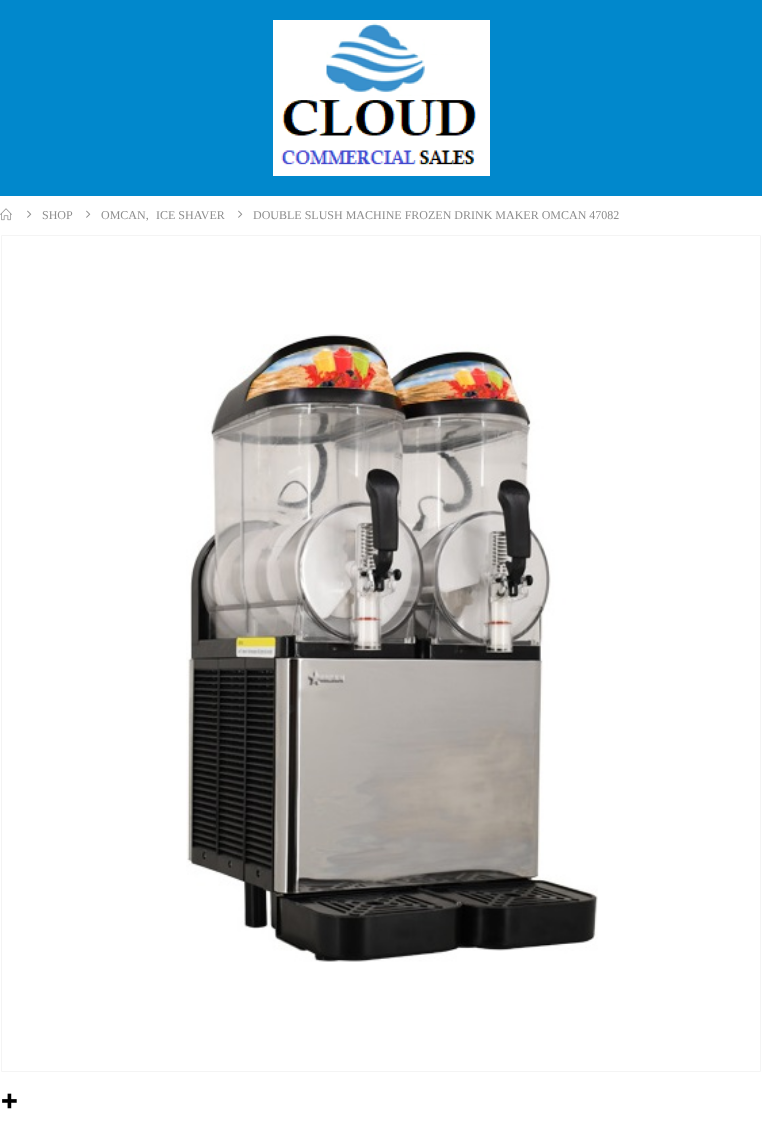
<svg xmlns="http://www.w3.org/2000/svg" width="762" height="1124">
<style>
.a{font:12px Liberation Serif;fill:#8e8e8e}
</style>
<rect width="100%" height="100%" fill="#fff"/>
<path fill="#0188cc" d="M0 0h762v196H0z"/>
<image href="1.png" x="273" y="20" width="217" height="156"/>
<image href="2.png" x="0" y="208" width="12" height="13"/>
<image href="3.png" x="27" y="210" width="5" height="8"/>
<image href="3.png" x="86" y="210" width="5" height="8"/>
<image href="3.png" x="238" y="210" width="5" height="8"/>
<path fill="none" stroke="#f4f4f4" d="M1.5 235.5h759v836H1.5z"/>
<image href="4.png" x="186" y="334" width="412" height="628"/>
<image href="5.png" x="2" y="1093" width="15" height="16"/>
<text class="a" x="42" y="219">SHOP</text>
<text class="a" x="101" y="219">OMCAN,</text>
<text class="a" x="156" y="219">ICE SHAVER</text>
<text class="a" x="253" y="219">DOUBLE SLUSH MACHINE FROZEN DRINK MAKER OMCAN 47082</text>
</svg>
